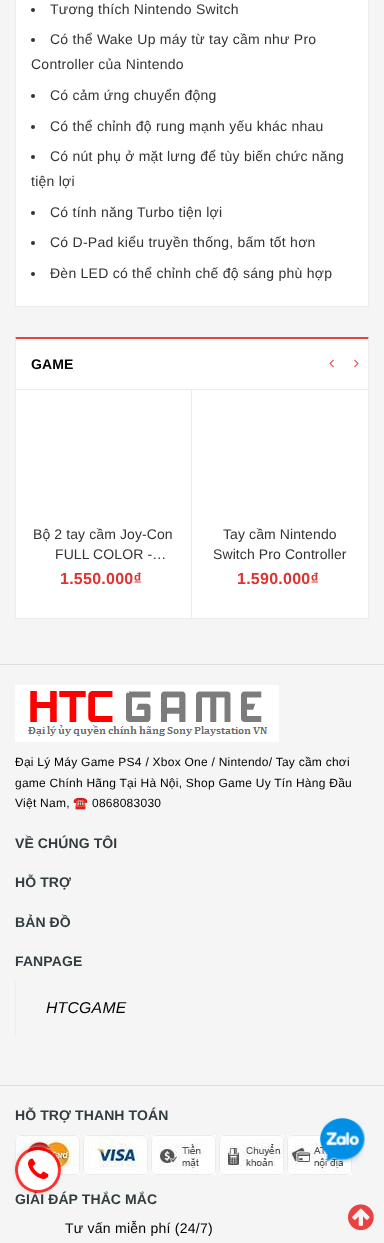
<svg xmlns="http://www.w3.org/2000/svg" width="384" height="1243">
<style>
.a{font:14px Liberation Sans;letter-spacing:0.25px;fill:#333}
.b{font:bold 14px Liberation Sans;letter-spacing:0.1px;fill:#000}
.c{font:14px Liberation Sans;letter-spacing:0.1px;fill:#333}
.d{font:bold 16px Liberation Sans;letter-spacing:0.25px;fill:#dc3333}
.e{font:12px Liberation Sans;letter-spacing:0.25px;fill:#000}
.f{font:12px Noto Color Emoji;letter-spacing:0.25px;fill:#000}
.g{font:bold 14px Liberation Sans;letter-spacing:0.1px;fill:#323c3f}
.h{font:italic 15.75px Liberation Sans;letter-spacing:0.25px;fill:#000}
.i{font:14px Liberation Sans;letter-spacing:0.25px;fill:#000}
</style>
<defs>
<clipPath id="clip1"><path d="M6 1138h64v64h-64zm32 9c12.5 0 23 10.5 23 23c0 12.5-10.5 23-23 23c-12.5 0-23-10.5-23-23c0-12.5 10.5-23 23-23z" clip-rule="evenodd"/></clipPath>
</defs>
<rect width="100%" height="100%" fill="#f5f5f5"/>
<path fill="#fff" stroke="#ebebeb" d="M15.5 -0.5h353v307H15.5z"/>
<circle fill="#333" cx="33" cy="10" r="2"/>
<circle fill="#333" cx="33" cy="40" r="2"/>
<circle fill="#333" cx="33" cy="96" r="2"/>
<circle fill="#333" cx="33" cy="127" r="2"/>
<circle fill="#333" cx="33" cy="157" r="2"/>
<circle fill="#333" cx="33" cy="213" r="2"/>
<circle fill="#333" cx="33" cy="243" r="2"/>
<circle fill="#333" cx="33" cy="274" r="2"/>
<path fill="#fff" d="M15 337h354v52H15z"/>
<path fill="#ea4242" d="M15 337h354l-1 2h-352z"/>
<path fill="#ebebeb" d="M369 337v52h-1v-50z"/>
<path fill="#ebebeb" d="M15 389v-52l1 2v50z"/>
<path fill="#fff" stroke="#ebebeb" d="M15.5 389.5h353v229H15.5z"/>
<image href="1.png" x="329" y="359" width="5" height="9"/>
<image href="2.png" x="354" y="359" width="5" height="9"/>
<path fill="#ebebeb" d="M191 390h1v228H191z"/>
<path fill="#dedede" d="M0 664h384v1H0z"/>
<image href="3.png" x="15" y="685" width="264" height="57"/>
<path fill="#ebebeb" d="M15 982h1v53H15z"/>
<path fill="#dedede" d="M0 1085h384v1H0z"/>
<image href="4.png" x="15" y="1135" width="65" height="40"/>
<image href="5.png" x="83" y="1135" width="65" height="40"/>
<image href="6.png" x="151" y="1135" width="65" height="40"/>
<image href="7.png" x="219" y="1135" width="65" height="40"/>
<image href="8.png" x="287" y="1135" width="65" height="40"/>
<image href="9.png" x="348" y="1204" width="26" height="27"/>
<g clip-path="url(#clip1)">
<rect fill="#ddd" filter="blur(2.5px)" x="15" y="1147" width="46" height="46" rx="23"/>
</g>
<image href="11.png" x="320" y="1118" width="45" height="45"/>
<text class="a" x="50" y="14">Tương thích Nintendo Switch</text>
<text class="a" x="50" y="44">Có thể Wake Up máy từ tay cầm như Pro</text>
<text class="a" x="31" y="69">Controller của Nintendo</text>
<text class="a" x="50" y="100">Có cảm ứng chuyển động</text>
<text class="a" x="50" y="131">Có thể chỉnh độ rung mạnh yếu khác nhau</text>
<text class="a" x="50" y="161">Có nút phụ ở mặt lưng để tùy biến chức năng</text>
<text class="a" x="31" y="186">tiện lợi</text>
<text class="a" x="50" y="217">Có tính năng Turbo tiện lợi</text>
<text class="a" x="50" y="247">Có D-Pad kiểu truyền thống, bấm tốt hơn</text>
<text class="a" x="50" y="278">Đèn LED có thể chỉnh chế độ sáng phù hợp</text>
<text class="b" x="31" y="369">GAME</text>
<text class="c" x="33" y="539">Bộ 2 tay cầm Joy-Con</text>
<text class="c" x="55" y="559">FULL COLOR -…</text>
<text class="d" x="60" y="584">1.550.000₫</text>
<text class="c" x="223" y="539">Tay cầm Nintendo</text>
<text class="c" x="213" y="559">Switch Pro Controller</text>
<text class="d" x="237" y="584">1.590.000₫</text>
<text class="e" x="15" y="766">Đại Lý Máy Game PS4 / Xbox One / Nintendo/ Tay cầm chơi</text>
<text class="e" x="15" y="787">game Chính Hãng Tại Hà Nội, Shop Game Uy Tín Hàng Đầu</text>
<text class="e" x="15" y="807">Việt Nam,</text>
<text class="f" x="73" y="807">☎️</text>
<text class="e" x="92" y="807">0868083030</text>
<text class="g" x="15" y="848">VỀ CHÚNG TÔI</text>
<text class="g" x="15" y="887">HỖ TRỢ</text>
<text class="g" x="15" y="927">BẢN ĐỒ</text>
<text class="g" x="15" y="966">FANPAGE</text>
<text class="h" x="46" y="1013">HTCGAME</text>
<text class="g" x="15" y="1120">HỖ TRỢ THANH TOÁN</text>
<text class="g" x="15" y="1204">GIẢI ĐÁP THẮC MẮC</text>
<text class="i" x="65" y="1233">Tư vấn miễn phí (24/7)</text>
<circle fill="#fe0000cc" cx="38" cy="1170" r="23"/>
<circle fill="#fff" cx="38" cy="1170" r="20"/>
<image href="10.png" x="28" y="1158" width="21" height="21"/>
</svg>
